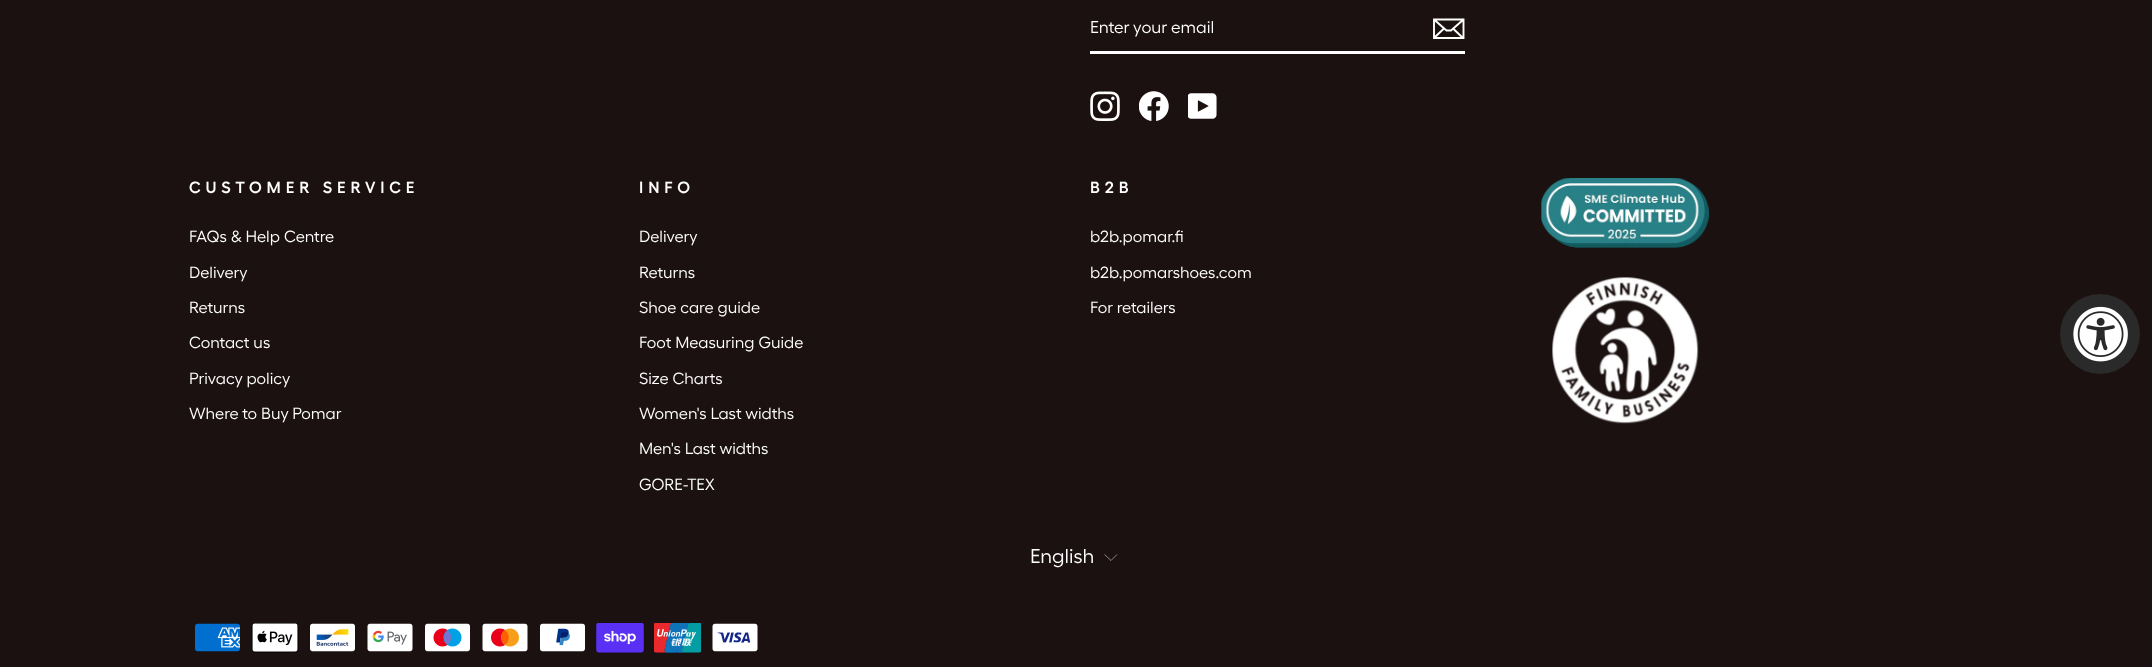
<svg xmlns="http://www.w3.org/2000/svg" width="2152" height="667">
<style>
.a{font:17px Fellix;fill:#fff}
.b{font:600 16.25px Fellix;letter-spacing:4.9px;fill:#fff}
.c{font:16.25px Fellix;fill:#fff}
.d{font:20px Fellix;fill:#fff}
</style>
<rect width="100%" height="100%" fill="#1c1111"/>
<path fill="#fff" d="M1090 51h375v3H1090z"/>
<path fill="none" stroke="#fff" stroke-width="1.9" d="M1463.5 38h-29.5v-18.5h29.5zm-29.5-18.5l12.5 11h4.5l12.5-11m-19.5 9l-9.5 9m28.5 .5l-10-9.5"/>
<image href="1.png" x="1090" y="91" width="30" height="30"/>
<image href="2.png" x="1139" y="91" width="30" height="30"/>
<image href="3.png" x="1188" y="93" width="29" height="26"/>
<image href="4.png" x="1541" y="178" width="168" height="70"/>
<image href="5.png" x="1552" y="277" width="147" height="147"/>
<path fill="none" stroke="#fff" stroke-width="0.5" d="M1104.5 554.5l6.5 6l6-6"/>
<image href="6.png" x="195" y="623" width="45" height="29"/>
<image href="7.png" x="251" y="623" width="48" height="30"/>
<image href="8.png" x="310" y="623" width="45" height="29"/>
<image href="9.png" x="367" y="623" width="46" height="29"/>
<image href="10.png" x="425" y="623" width="45" height="29"/>
<image href="11.png" x="482" y="623" width="46" height="29"/>
<image href="12.png" x="540" y="623" width="45" height="29"/>
<image href="13.png" x="596" y="623" width="48" height="30"/>
<image href="14.png" x="654" y="623" width="47" height="30"/>
<image href="15.png" x="712" y="623" width="46" height="29"/>
<circle fill="#2b2a2a" cx="2100" cy="334" r="40"/>
<image href="16.png" x="2073" y="306" width="55" height="56"/>
<text class="a" x="1090" y="33">Enter your email</text>
<text class="b" x="189" y="193">CUSTOMER SERVICE</text>
<text class="c" x="189" y="242">FAQs &amp; Help Centre</text>
<text class="c" x="189" y="278">Delivery</text>
<text class="c" x="189" y="313">Returns</text>
<text class="c" x="189" y="348">Contact us</text>
<text class="c" x="189" y="384">Privacy policy</text>
<text class="c" x="189" y="419">Where to Buy Pomar</text>
<text class="b" x="639" y="193">INFO</text>
<text class="c" x="639" y="242">Delivery</text>
<text class="c" x="639" y="278">Returns</text>
<text class="c" x="639" y="313">Shoe care guide</text>
<text class="c" x="639" y="348">Foot Measuring Guide</text>
<text class="c" x="639" y="384">Size Charts</text>
<text class="c" x="639" y="419">Women's Last widths</text>
<text class="c" x="639" y="454">Men's Last widths</text>
<text class="c" x="639" y="490">GORE-TEX</text>
<text class="b" x="1090" y="193">B2B</text>
<text class="c" x="1090" y="242">b2b.pomar.fi</text>
<text class="c" x="1090" y="278">b2b.pomarshoes.com</text>
<text class="c" x="1090" y="313">For retailers</text>
<text class="d" x="1030" y="563">English</text>
</svg>
